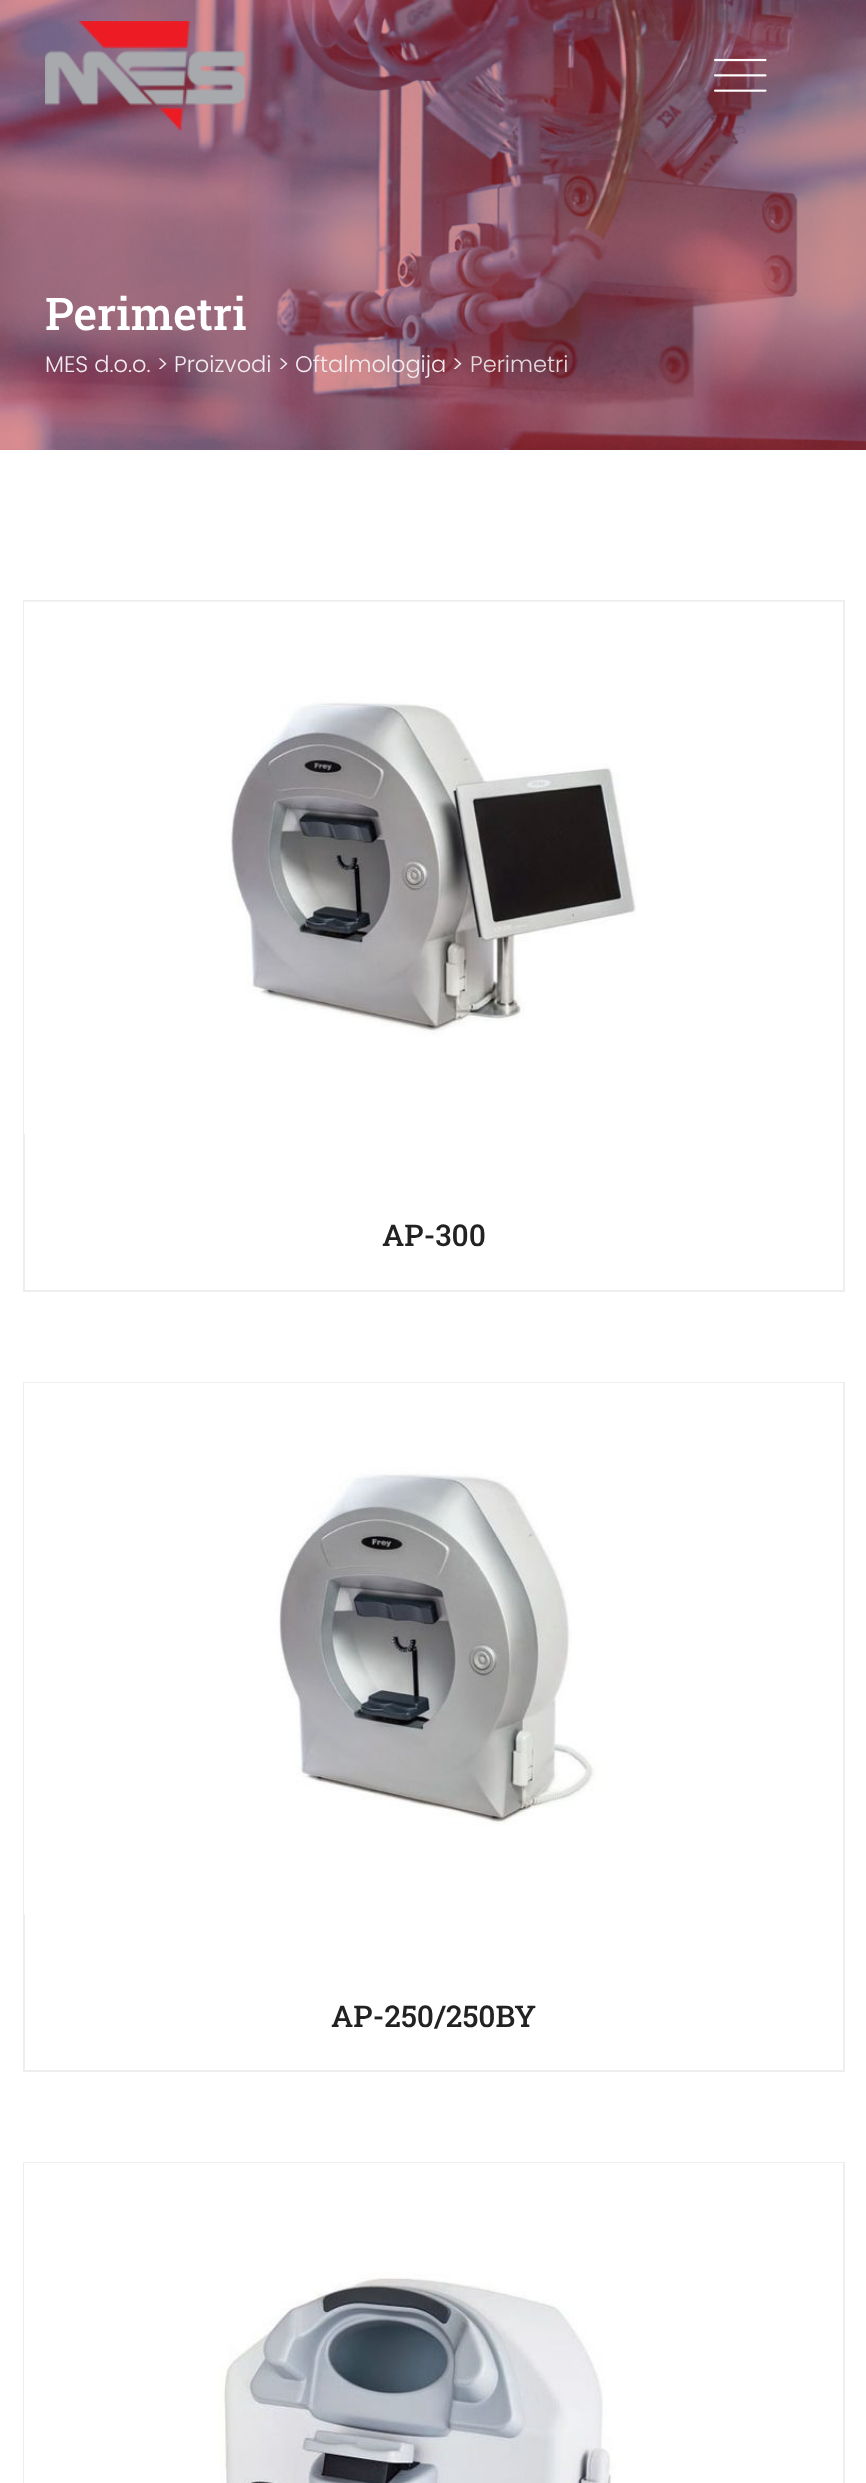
<svg xmlns="http://www.w3.org/2000/svg" width="866" height="2483">
<style>
.a{font:500 45px Roboto Slab;fill:#fff}
.b{font:300 22.5px Poppins;fill:#f2ecef}
.c{font:300 22.5px Poppins;fill:#e5d9dc}
.d{font:500 30px Roboto Slab;fill:#222}
</style>
<rect width="100%" height="100%" fill="#fff"/>
<image href="3.png" x="0" y="0" width="866" height="450"/>
<image href="1.png" x="45" y="21" width="200" height="110"/>
<image href="2.png" x="714" y="58" width="53" height="34"/>
<path fill="none" stroke="#eee" stroke-width="2" d="M24 601h820v690H24z"/>
<image href="4.png" x="24" y="601" width="819" height="533"/>
<path fill="none" stroke="#eee" stroke-width="2" d="M24 1383h820v688H24z"/>
<image href="5.png" x="24" y="1383" width="819" height="531"/>
<path fill="none" stroke="#eee" stroke-width="2" d="M24 2163h820v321H24z"/>
<image href="6.png" x="24" y="2163" width="819" height="320"/>
<text class="a" x="45" y="330">Perimetri</text>
<text class="b" x="45" y="372">MES d.o.o.</text>
<text class="b" x="157" y="372">&gt;</text>
<text class="b" x="174" y="372">Proizvodi</text>
<text class="b" x="278" y="372">&gt;</text>
<text class="b" x="295" y="372">Oftalmologija</text>
<text class="b" x="452" y="372">&gt;</text>
<text class="c" x="470" y="372">Perimetri</text>
<text class="d" x="382" y="1246">AP-300</text>
<text class="d" x="331" y="2027">AP-250/250BY</text>
</svg>
